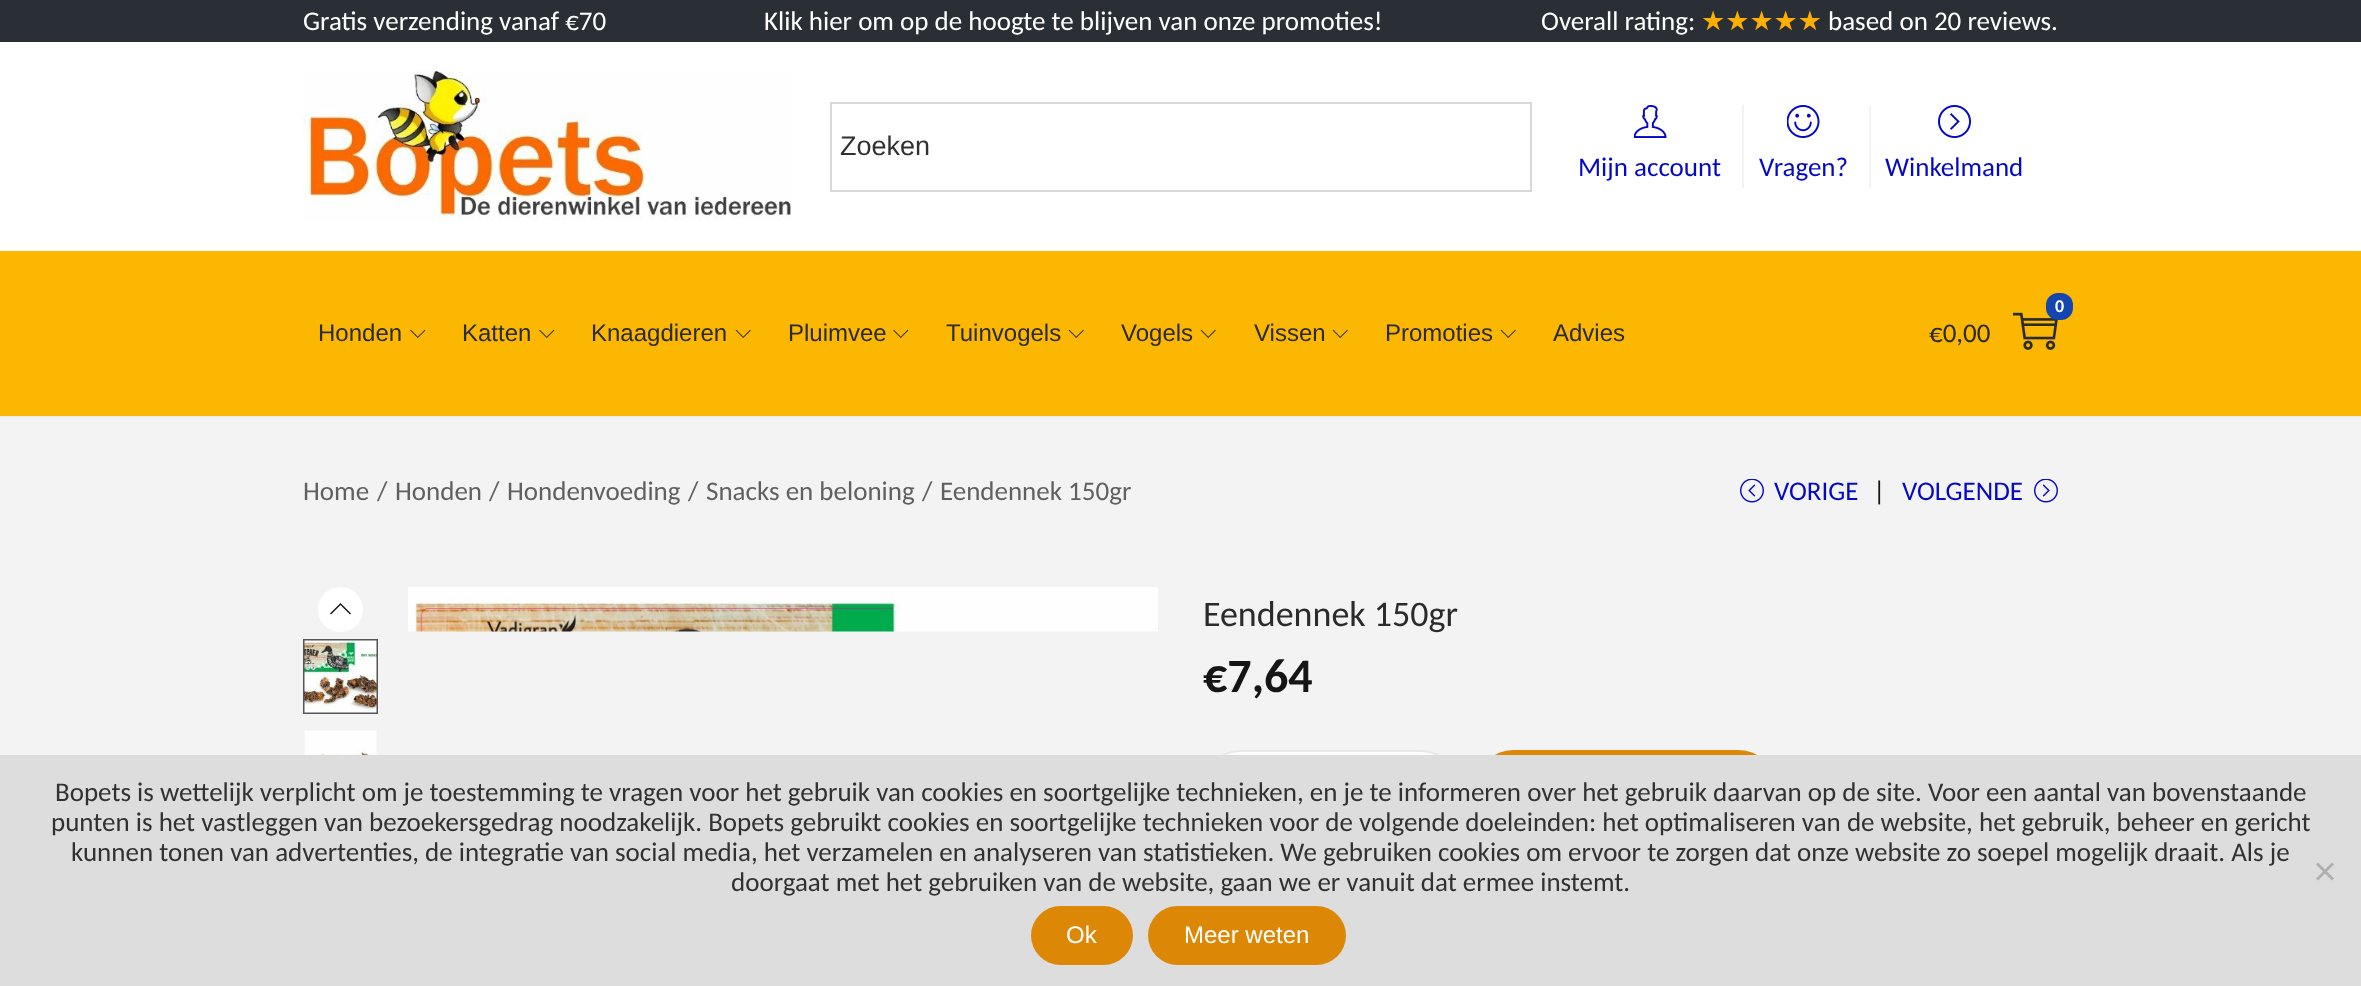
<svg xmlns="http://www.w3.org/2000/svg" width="2361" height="986">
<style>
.a{font:27px Carlito;fill:#fff}
.b{font:27px DejaVu Sans;fill:#ffaf00}
.c{font:27px Liberation Sans;fill:#313131}
.d{font:27px Carlito;fill:#0509c6}
.e{font:24px Liberation Sans;fill:#2b2b2b}
.f{font:bold 18px Carlito;fill:#fff}
.g{font:27px Carlito;fill:#2b2b2b}
.h{font:27px Carlito;fill:#606060}
.i{font:27px Carlito;fill:#151515}
.j{font:36px Carlito;fill:#2b2b2b}
.k{font:bold 48px Carlito;fill:#151515}
.l{font:27px Carlito;fill:#313131}
.m{font:24px Liberation Sans;fill:#fff}
</style>
<rect width="100%" height="100%" fill="#fff"/>
<path fill="#292f34" d="M0 0h2361v42H0z"/>
<path fill="#eaeaea" d="M0 416h2361v1H0z"/>
<image href="1.png" x="303" y="71" width="489" height="150"/>
<path fill="none" stroke="#d8d8d8" stroke-width="2" d="M831 103h700v88H831z"/>
<image href="2.png" x="1634" y="105" width="33" height="33"/>
<path fill="#f2f2f2" d="M1742 105h2v83H1742z"/>
<image href="3.png" x="1787" y="105" width="33" height="33"/>
<path fill="#f2f2f2" d="M1869 105h2v83H1869z"/>
<image href="4.png" x="1938" y="105" width="33" height="33"/>
<path fill="#fcb702" d="M0 251h2361v165H0z"/>
<image href="5.png" x="410" y="329" width="16" height="9"/>
<image href="5.png" x="539" y="329" width="16" height="9"/>
<image href="6.png" x="735" y="329" width="16" height="9"/>
<image href="5.png" x="893" y="329" width="16" height="9"/>
<image href="6.png" x="1068" y="329" width="16" height="9"/>
<image href="6.png" x="1200" y="329" width="16" height="9"/>
<image href="6.png" x="1332" y="329" width="16" height="9"/>
<image href="6.png" x="1500" y="329" width="16" height="9"/>
<image href="7.png" x="2013" y="312" width="45" height="38"/>
<rect fill="#1346af" x="2046" y="293" width="27" height="27" rx="12"/>
<path fill="#f3f3f3" d="M0 417h2361v338H0z"/>
<image href="8.png" x="1740" y="479" width="24" height="24"/>
<image href="9.png" x="2034" y="479" width="24" height="24"/>
<circle fill="#fff" cx="340.5" cy="609.5" r="22.5"/>
<path fill="#151515" d="M351 613.5l-1 1l-9.5-9.5l-9.5 9.5l-1-1l10.5-10.5z"/>
<path fill="none" stroke="#555" stroke-width="2" d="M304 640h73v73H304z"/>
<image href="10.png" x="304" y="640" width="73" height="73"/>
<image href="11.png" x="304" y="730" width="73" height="25"/>
<image href="12.png" x="408" y="587" width="750" height="45"/>
<rect fill="#fff" stroke="#e8e8e8" stroke-width="2" x="1204" y="751" width="253" height="73" rx="36.5"/>
<rect fill="#dd8706" x="1476" y="750" width="300" height="75" rx="37.5"/>
<path fill="#ddd" d="M0 755h2361v231H0z"/>
<path fill="#afafaf" d="M2332 862.5l2 2l-16 16l-2-2z"/>
<path fill="#afafaf" d="M2316 864.5l2-2l16 16l-2 2z"/>
<rect fill="#dd8706" x="1031" y="906" width="102" height="59" rx="29.5"/>
<rect fill="#dd8706" x="1148" y="906" width="198" height="59" rx="29.5"/>
<text class="a" x="303" y="30">Gratis verzending vanaf €70</text>
<text class="a" x="764" y="30">Klik hier om op de hoogte te blijven van onze promoties!</text>
<text class="a" x="1541" y="30">Overall rating:</text>
<text class="b" x="1701" y="30">★★★★★</text>
<text class="a" x="1828" y="30">based on 20 reviews.</text>
<text class="c" x="840" y="155">Zoeken</text>
<text class="d" x="1578" y="176">Mijn account</text>
<text class="d" x="1759" y="176">Vragen?</text>
<text class="d" x="1885" y="176">Winkelmand</text>
<text class="e" x="318" y="341">Honden</text>
<text class="e" x="462" y="341">Katten</text>
<text class="e" x="591" y="341">Knaagdieren</text>
<text class="e" x="788" y="341">Pluimvee</text>
<text class="e" x="946" y="341">Tuinvogels</text>
<text class="e" x="1121" y="341">Vogels</text>
<text class="e" x="1254" y="341">Vissen</text>
<text class="e" x="1385" y="341">Promoties</text>
<text class="e" x="1553" y="341">Advies</text>
<text class="f" x="2055" y="312">0</text>
<text class="g" x="1929" y="342">€0,00</text>
<text class="h" x="303" y="500">Home</text>
<text class="h" x="377" y="500">/</text>
<text class="h" x="395" y="500">Honden</text>
<text class="h" x="489" y="500">/</text>
<text class="h" x="507" y="500">Hondenvoeding</text>
<text class="h" x="688" y="500">/</text>
<text class="h" x="706" y="500">Snacks en beloning</text>
<text class="h" x="922" y="500">/</text>
<text class="h" x="940" y="500">Eendennek 150gr</text>
<text class="d" x="1774" y="500">VORIGE</text>
<text class="i" x="1873" y="500">|</text>
<text class="d" x="1902" y="500">VOLGENDE</text>
<text class="j" x="1203" y="626">Eendennek 150gr</text>
<text class="k" x="1203" y="692">€7,64</text>
<text class="l" x="55" y="801">Bopets is wettelijk verplicht om je toestemming te vragen voor het gebruik van cookies en soortgelijke technieken, en je te informeren over het gebruik daarvan op de site. Voor een aantal van bovenstaande</text>
<text class="l" x="51" y="831">punten is het vastleggen van bezoekersgedrag noodzakelijk. Bopets gebruikt cookies en soortgelijke technieken voor de volgende doeleinden: het optimaliseren van de website, het gebruik, beheer en gericht</text>
<text class="l" x="71" y="861">kunnen tonen van advertenties, de integratie van social media, het verzamelen en analyseren van statistieken. We gebruiken cookies om ervoor te zorgen dat onze website zo soepel mogelijk draait. Als je</text>
<text class="l" x="731" y="891">doorgaat met het gebruiken van de website, gaan we er vanuit dat ermee instemt.</text>
<text class="m" x="1066" y="943">Ok</text>
<text class="m" x="1184" y="943">Meer weten</text>
</svg>
